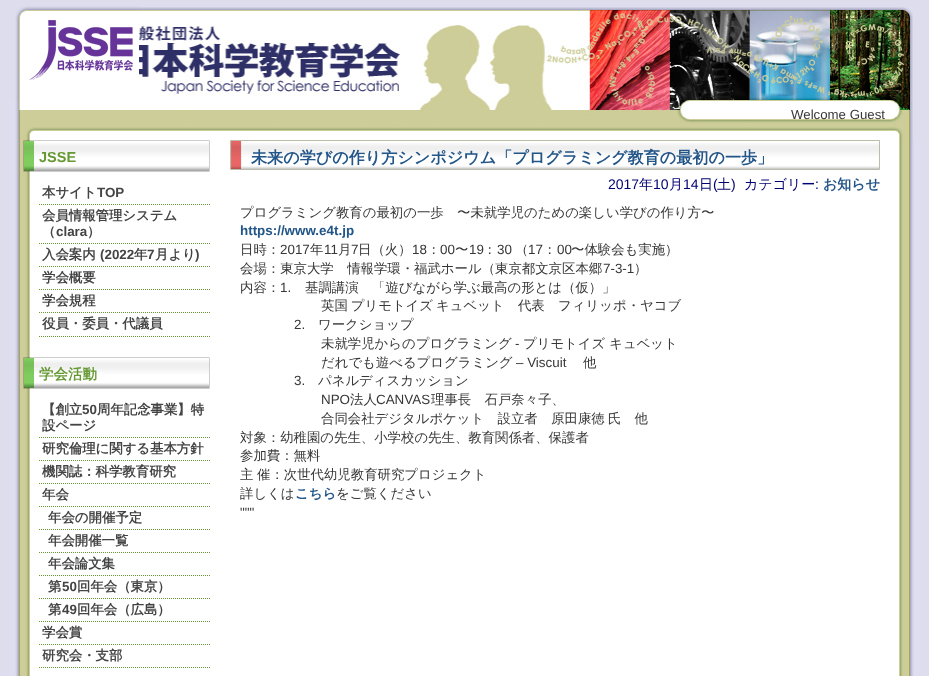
<svg xmlns="http://www.w3.org/2000/svg" width="929" height="676">
<style>
.a{font:13.25px Liberation Sans;fill:#373737}
.b{font:bold 14.5px Liberation Sans;fill:#693}
.c{font:bold 13.4px WenQuanYi Zen Hei;fill:#444}
.d{font:bold 13.4px Liberation Sans;fill:#444}
.e{font:bold 14.5px WenQuanYi Zen Hei;fill:#693}
.f{font:bold 16.1px WenQuanYi Zen Hei;fill:#258}
.g{font:14px Liberation Sans;fill:#000070}
.h{font:500 14px WenQuanYi Zen Hei;fill:#000070}
.i{font:bold 14px WenQuanYi Zen Hei;fill:#258}
.j{font:500 13.4px WenQuanYi Zen Hei;fill:#373737}
.k{font:bold 13.4px Liberation Sans;fill:#258}
.l{font:13.4px Liberation Sans;fill:#373737}
.m{font:bold 13.4px WenQuanYi Zen Hei;fill:#258}
</style>
<rect width="100%" height="100%" fill="#dde"/>
<image href="1.png" x="139" y="7" width="774" height="93"/>
<image href="2.png" x="9" y="6" width="130" height="94"/>
<image href="3.png" x="9" y="100" width="26" height="40"/>
<image href="4.png" x="35" y="100" width="878" height="40"/>
<path fill="#fff" d="M39 140h851v536H39z"/>
<image href="5.png" x="9" y="140" width="911" height="536"/>
<image href="6.png" x="18" y="140" width="192" height="32"/>
<path fill="none" stroke="#693" stroke-dasharray="1 1" d="M39 204.5h171"/>
<path fill="none" stroke="#693" stroke-dasharray="1 1" d="M39 243.5h171"/>
<path fill="none" stroke="#693" stroke-dasharray="1 1" d="M39 266.5h171"/>
<path fill="none" stroke="#693" stroke-dasharray="1 1" d="M39 289.5h171"/>
<path fill="none" stroke="#693" stroke-dasharray="1 1" d="M39 312.5h171"/>
<path fill="none" stroke="#693" stroke-dasharray="1 1" d="M39 336.5h171"/>
<image href="6.png" x="18" y="357" width="192" height="32"/>
<path fill="none" stroke="#693" stroke-dasharray="1 1" d="M39 437.5h171"/>
<path fill="none" stroke="#693" stroke-dasharray="1 1" d="M39 460.5h171"/>
<path fill="none" stroke="#693" stroke-dasharray="1 1" d="M39 483.5h171"/>
<path fill="none" stroke="#693" stroke-dasharray="1 1" d="M39 506.5h171"/>
<path fill="none" stroke="#693" stroke-dasharray="1 1" d="M39 529.5h171"/>
<path fill="none" stroke="#693" stroke-dasharray="1 1" d="M39 552.5h171"/>
<path fill="none" stroke="#693" stroke-dasharray="1 1" d="M39 575.5h171"/>
<path fill="none" stroke="#693" stroke-dasharray="1 1" d="M39 598.5h171"/>
<path fill="none" stroke="#693" stroke-dasharray="1 1" d="M39 621.5h171"/>
<path fill="none" stroke="#693" stroke-dasharray="1 1" d="M39 644.5h171"/>
<path fill="none" stroke="#693" stroke-dasharray="1 1" d="M39 667.5h171"/>
<image href="7.png" x="231" y="141" width="648" height="28"/>
<path fill="none" stroke="#bba" d="M230.5 140.5h649v29H230.5z"/>
<text class="a" x="791" y="119">Welcome Guest</text>
<text class="b" x="39" y="162">JSSE</text>
<text class="c" x="42" y="197">本サイト</text>
<text class="d" x="97" y="197">TOP</text>
<text class="c" x="42" y="220">会員情報管理システム</text>
<text class="c" x="42" y="236">（</text>
<text class="d" x="56" y="236">clara</text>
<text class="c" x="87" y="236">）</text>
<text class="c" x="42" y="259">入会案内</text>
<text class="d" x="100" y="259">(2022</text>
<text class="c" x="134" y="259">年</text>
<text class="d" x="147" y="259">7</text>
<text class="c" x="155" y="259">月より</text>
<text class="d" x="195" y="259">)</text>
<text class="c" x="42" y="282">学会概要</text>
<text class="c" x="42" y="305">学会規程</text>
<text class="c" x="42" y="328">役員・委員・代議員</text>
<text class="e" x="39" y="379">学会活動</text>
<text class="c" x="42" y="414">【創立</text>
<text class="d" x="82" y="414">50</text>
<text class="c" x="97" y="414">周年記念事業】特</text>
<text class="c" x="42" y="430">設ページ</text>
<text class="c" x="42" y="453">研究倫理に関する基本方針</text>
<text class="c" x="42" y="476">機関誌：科学教育研究</text>
<text class="c" x="42" y="499">年会</text>
<text class="c" x="48" y="522">年会の開催予定</text>
<text class="c" x="48" y="545">年会開催一覧</text>
<text class="c" x="48" y="568">年会論文集</text>
<text class="c" x="48" y="591">第</text>
<text class="d" x="62" y="591">50</text>
<text class="c" x="77" y="591">回年会（東京）</text>
<text class="c" x="48" y="614">第</text>
<text class="d" x="62" y="614">49</text>
<text class="c" x="77" y="614">回年会（広島）</text>
<text class="c" x="42" y="637">学会賞</text>
<text class="c" x="42" y="660">研究会・支部</text>
<text class="f" x="251" y="163">未来の学びの作り方シンポジウム「プログラミング教育の最初の一歩」</text>
<text class="g" x="608" y="189">2017</text>
<text class="h" x="639" y="189">年</text>
<text class="g" x="653" y="189">10</text>
<text class="h" x="669" y="189">月</text>
<text class="g" x="683" y="189">14</text>
<text class="h" x="699" y="189">日</text>
<text class="g" x="713" y="189">(</text>
<text class="h" x="717" y="189">土</text>
<text class="g" x="731" y="189">)</text>
<text class="h" x="744" y="189">カテゴリー</text>
<text class="g" x="815" y="189">:</text>
<text class="i" x="823" y="189">お知らせ</text>
<text class="j" x="240" y="217">プログラミング教育の最初の一歩　〜未就学児のための楽しい学びの作り方〜</text>
<text class="k" x="240" y="235">https://www.e4t.jp</text>
<text class="j" x="240" y="254">日時：</text>
<text class="l" x="280" y="254">2017</text>
<text class="j" x="310" y="254">年</text>
<text class="l" x="324" y="254">11</text>
<text class="j" x="338" y="254">月</text>
<text class="l" x="351" y="254">7</text>
<text class="j" x="358" y="254">日（火）</text>
<text class="l" x="412" y="254">18</text>
<text class="j" x="427" y="254">：</text>
<text class="l" x="440" y="254">00</text>
<text class="j" x="455" y="254">〜</text>
<text class="l" x="469" y="254">19</text>
<text class="j" x="483" y="254">：</text>
<text class="l" x="497" y="254">30</text>
<text class="j" x="515" y="254">（</text>
<text class="l" x="528" y="254">17</text>
<text class="j" x="543" y="254">：</text>
<text class="l" x="557" y="254">00</text>
<text class="j" x="571" y="254">〜体験会も実施）</text>
<text class="j" x="240" y="273">会場：東京大学　情報学環・福武ホール（東京都文京区本郷</text>
<text class="l" x="603" y="273">7-3-1</text>
<text class="j" x="634" y="273">）</text>
<text class="j" x="240" y="292">内容：</text>
<text class="l" x="280" y="292">1.</text>
<text class="j" x="305" y="292">基調講演　「遊びながら学ぶ最高の形とは（仮）」</text>
<text class="j" x="321" y="310" word-spacing="-1">英国 プリモトイズ キュベット　代表　フィリッポ・ヤコブ</text>
<text class="l" x="294" y="329">2.</text>
<text class="j" x="318" y="329">ワークショップ</text>
<text class="j" x="321" y="348">未就学児からのプログラミング</text>
<text class="l" x="515" y="348">-</text>
<text class="j" x="523" y="348">プリモトイズ キュベット</text>
<text class="j" x="321" y="367">だれでも遊べるプログラミング</text>
<text class="l" x="516" y="367">– Viscuit</text>
<text class="j" x="583" y="367">他</text>
<text class="l" x="294" y="385">3.</text>
<text class="j" x="318" y="385">パネルディスカッション</text>
<text class="l" x="321" y="404">NPO</text>
<text class="j" x="350" y="404">法人</text>
<text class="l" x="376" y="404">CANVAS</text>
<text class="j" x="431" y="404">理事長　石戸奈々子、</text>
<text class="j" x="321" y="423" word-spacing="-1">合同会社デジタルポケット　設立者　原田康徳 氏　他</text>
<text class="j" x="240" y="442">対象：幼稚園の先生、小学校の先生、教育関係者、保護者</text>
<text class="j" x="240" y="460">参加費：無料</text>
<text class="j" x="240" y="479">主</text>
<text class="j" x="257" y="479">催：次世代幼児教育研究プロジェクト</text>
<text class="j" x="240" y="498">詳しくは</text>
<text class="m" x="295" y="498">こちら</text>
<text class="j" x="336" y="498">をご覧ください</text>
<text class="l" x="240" y="517">"""</text>
</svg>
